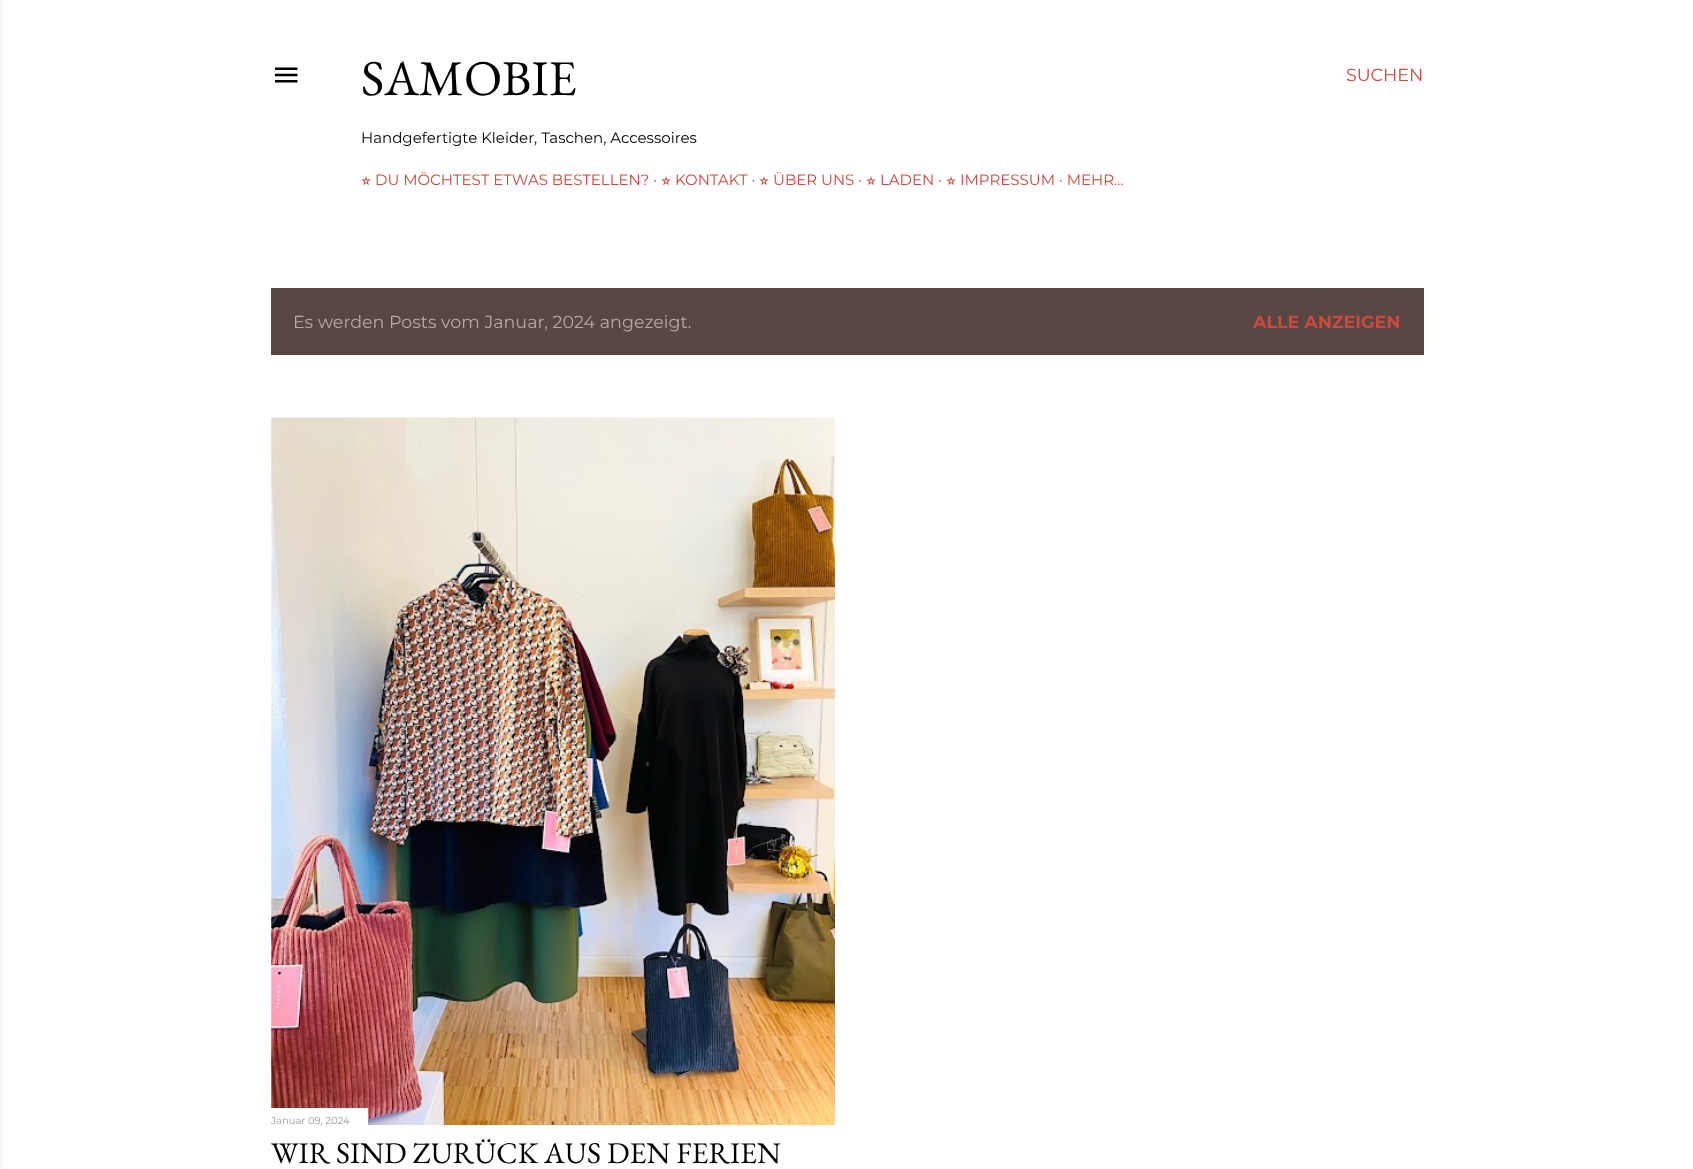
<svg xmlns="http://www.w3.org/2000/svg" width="1693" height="1169">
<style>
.a{font:50px EB Garamond;fill:#000}
.b{font:15px Montserrat;fill:#000}
.c{font:15px FreeSans;fill:#c74b40}
.d{font:15px Montserrat;fill:#c74b40}
.e{font:17.5px Montserrat;fill:#c74b40}
.f{font:17.5px Montserrat;fill:#b2a9a8}
.g{font:bold 17.5px Montserrat;fill:#c74b40}
.h{font:10px Montserrat;fill:#9e9e9e}
.i{font:30px EB Garamond;fill:#000}
</style>
<rect width="100%" height="100%" fill="#fff"/>
<path fill="#4a4a4a1a" filter="blur(2px)" d="M-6 0h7v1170H-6z"/>
<image href="1.png" x="275" y="67" width="23" height="16"/>
<path fill="#594643" d="M271 288h1153v67H271z"/>
<image href="2.png" x="271" y="417" width="564" height="708"/>
<path fill="#fff" d="M271 1108h97v17H271z"/>
<text class="a" x="361" y="95">SAMOBIE</text>
<text class="b" x="361" y="143">Handgefertigte Kleider, Taschen, Accessoires</text>
<text class="c" x="361" y="185">⭐︎</text>
<text class="d" x="375" y="185">DU MÖCHTEST ETWAS BESTELLEN? ·</text>
<text class="c" x="661" y="185">⭐︎</text>
<text class="d" x="675" y="185">KONTAKT ·</text>
<text class="c" x="759" y="185">⭐︎</text>
<text class="d" x="773" y="185">ÜBER UNS ·</text>
<text class="c" x="866" y="185">⭐︎</text>
<text class="d" x="880" y="185">LADEN ·</text>
<text class="c" x="946" y="185">⭐︎</text>
<text class="d" x="960" y="185">IMPRESSUM · MEHR…</text>
<text class="e" x="1346" y="81">SUCHEN</text>
<text class="f" x="293" y="328">Es werden Posts vom Januar, 2024 angezeigt.</text>
<text class="g" x="1253" y="328">ALLE ANZEIGEN</text>
<text class="h" x="271" y="1124">Januar 09, 2024</text>
<text class="i" x="271" y="1163">WIR SIND ZURÜCK AUS DEN FERIEN</text>
</svg>
